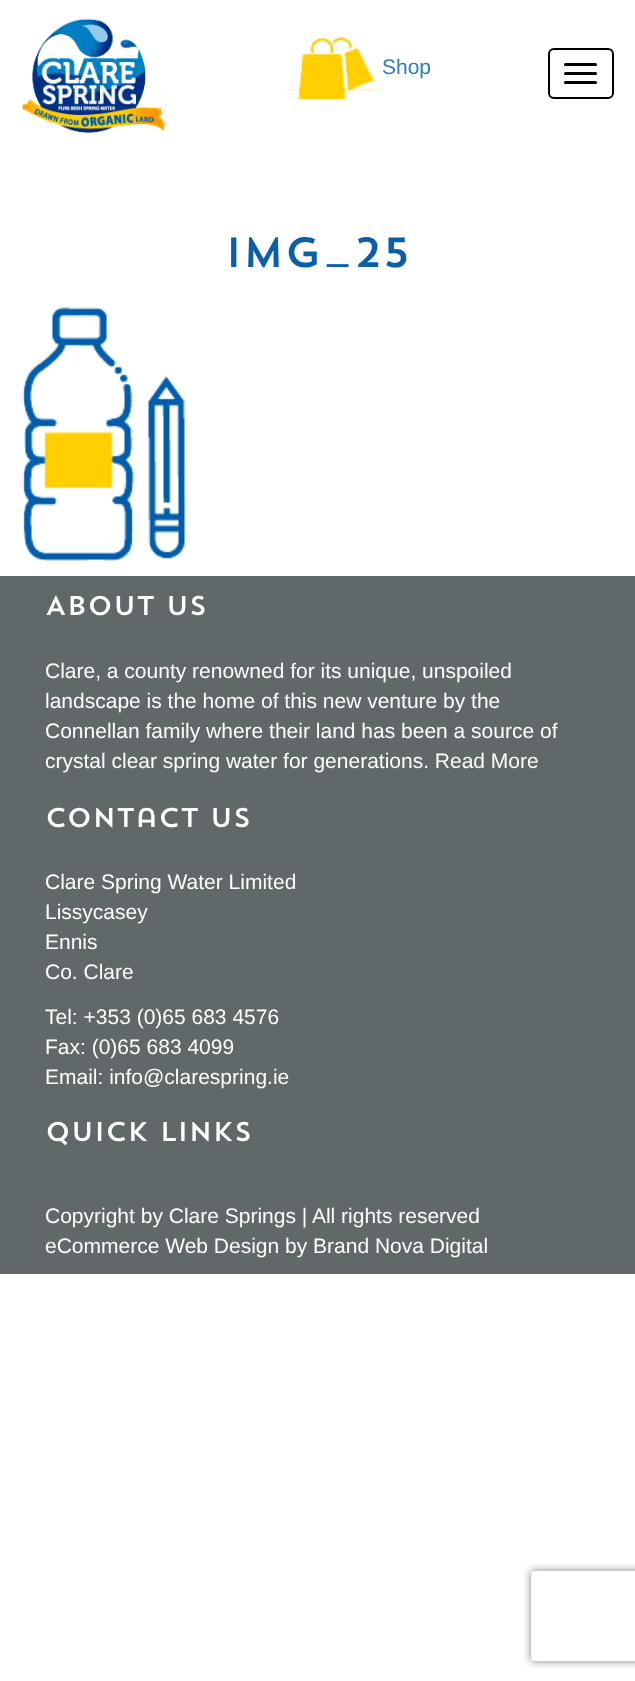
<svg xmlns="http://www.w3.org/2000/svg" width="635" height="1681">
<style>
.a{font:21px Liberation Sans;fill:#337ab7}
.b{font:200 42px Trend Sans;fill:#0b5fa9}
.c{font:200 27px Trend Sans;fill:#fff}
.d{font:21px Liberation Sans;fill:#fff}
</style>
<defs>
<clipPath id="clip1"><path d="M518 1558h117v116h-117zm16 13h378c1.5 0 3 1.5 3 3v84c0 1.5-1.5 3-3 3h-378c-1.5 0-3-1.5-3-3v-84c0-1.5 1.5-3 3-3z" clip-rule="evenodd"/></clipPath>
</defs>
<rect width="100%" height="100%" fill="#fff"/>
<image href="1.png" x="22" y="18" width="143" height="115"/>
<image href="2.png" x="286" y="37" width="97" height="62"/>
<rect fill="none" stroke="#000" stroke-width="2" x="549" y="49" width="64" height="49" rx="5"/>
<rect fill="#000" x="564" y="63" width="33" height="3" rx="1.5"/>
<rect fill="#000" x="564" y="72" width="33" height="3" rx="1.5"/>
<rect fill="#000" x="564" y="81" width="33" height="3" rx="1.5"/>
<image href="3.png" x="22" y="307" width="164" height="254"/>
<path fill="#60686a" d="M0 576h635v698H0z"/>
<g clip-path="url(#clip1)">
<rect fill="#808080" filter="blur(4px)" x="531" y="1571" width="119" height="90" rx="3"/>
</g>
<text class="a" x="382" y="74">Shop</text>
<text class="b" x="225" y="267">img_25</text>
<text class="c" x="45" y="615">About Us</text>
<text class="d" x="45" y="678">Clare, a county renowned for its unique, unspoiled</text>
<text class="d" x="45" y="708">landscape is the home of this new venture by the</text>
<text class="d" x="45" y="738">Connellan family where their land has been a source of</text>
<text class="d" x="45" y="768">crystal clear spring water for generations. Read More</text>
<text class="c" x="45" y="827">Contact Us</text>
<text class="d" x="45" y="889">Clare Spring Water Limited</text>
<text class="d" x="45" y="919">Lissycasey</text>
<text class="d" x="45" y="949">Ennis</text>
<text class="d" x="45" y="979">Co. Clare</text>
<text class="d" x="45" y="1024">Tel: +353 (0)65 683 4576</text>
<text class="d" x="45" y="1054">Fax: (0)65 683 4099</text>
<text class="d" x="45" y="1084">Email: info@clarespring.ie</text>
<text class="c" x="45" y="1141">QUICK LINKS</text>
<text class="d" x="45" y="1223">Copyright by Clare Springs | All rights reserved</text>
<text class="d" x="45" y="1253">eCommerce Web Design by Brand Nova Digital</text>
</svg>
